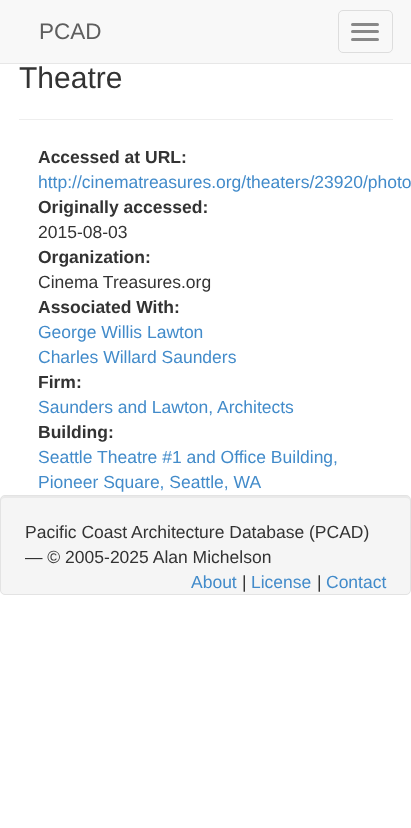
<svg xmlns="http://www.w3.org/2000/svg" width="411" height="828">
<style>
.a{font:22.5px Liberation Sans;fill:#5e5e5e}
.b{font:30px Liberation Sans;fill:#333}
.c{font:bold 17.5px Liberation Sans;fill:#333}
.d{font:17.5px Liberation Sans;fill:#428bca}
.e{font:17.5px Liberation Sans;fill:#333}
</style>
<rect width="100%" height="100%" fill="#fff"/>
<path fill="#f8f8f8" d="M0 0h411v63H0z"/>
<path fill="#e7e7e7" d="M0 63h411v1H0z"/>
<rect fill="none" stroke="#ddd" x="338.5" y="10.5" width="54" height="42" rx="4.5"/>
<rect fill="#888" x="351" y="23" width="28" height="3" rx="1.5"/>
<rect fill="#888" x="351" y="30" width="28" height="3" rx="1.5"/>
<rect fill="#888" x="351" y="38" width="28" height="3" rx="1.5"/>
<path fill="#eee" d="M19 119h374v1H19z"/>
<rect fill="#f5f5f5" y="495" width="411" height="100" rx="5"/>
<path fill="#e9e9e9" d="M5 498h401c2 0 4 1 4 3v-1c0-2-2-4-4-4h-401c-2 0-4 2-4 4v1c0-2 2-3 4-3z"/>
<rect fill="none" stroke="#e3e3e3" x="0.5" y="495.5" width="410" height="99" rx="4.5"/>
<text class="a" x="39" y="39">PCAD</text>
<text class="b" x="19" y="88">Theatre</text>
<text class="c" x="38" y="163">Accessed at URL:</text>
<text class="d" x="38" y="188">http://cinematreasures.org/theaters/23920/photo</text>
<text class="c" x="38" y="213">Originally accessed:</text>
<text class="e" x="38" y="238">2015-08-03</text>
<text class="c" x="38" y="263">Organization:</text>
<text class="e" x="38" y="288">Cinema Treasures.org</text>
<text class="c" x="38" y="313">Associated With:</text>
<text class="d" x="38" y="338">George Willis Lawton</text>
<text class="d" x="38" y="363">Charles Willard Saunders</text>
<text class="c" x="38" y="388">Firm:</text>
<text class="d" x="38" y="413">Saunders and Lawton, Architects</text>
<text class="c" x="38" y="438">Building:</text>
<text class="d" x="38" y="463">Seattle Theatre #1 and Office Building,</text>
<text class="d" x="38" y="488">Pioneer Square, Seattle, WA</text>
<text class="e" x="25" y="538">Pacific Coast Architecture Database (PCAD)</text>
<text class="e" x="25" y="563">— © 2005-2025 Alan Michelson</text>
<text class="d" x="191" y="588">About</text>
<text class="e" x="242" y="588">|</text>
<text class="d" x="251" y="588">License</text>
<text class="e" x="317" y="588">|</text>
<text class="d" x="326" y="588">Contact</text>
</svg>
